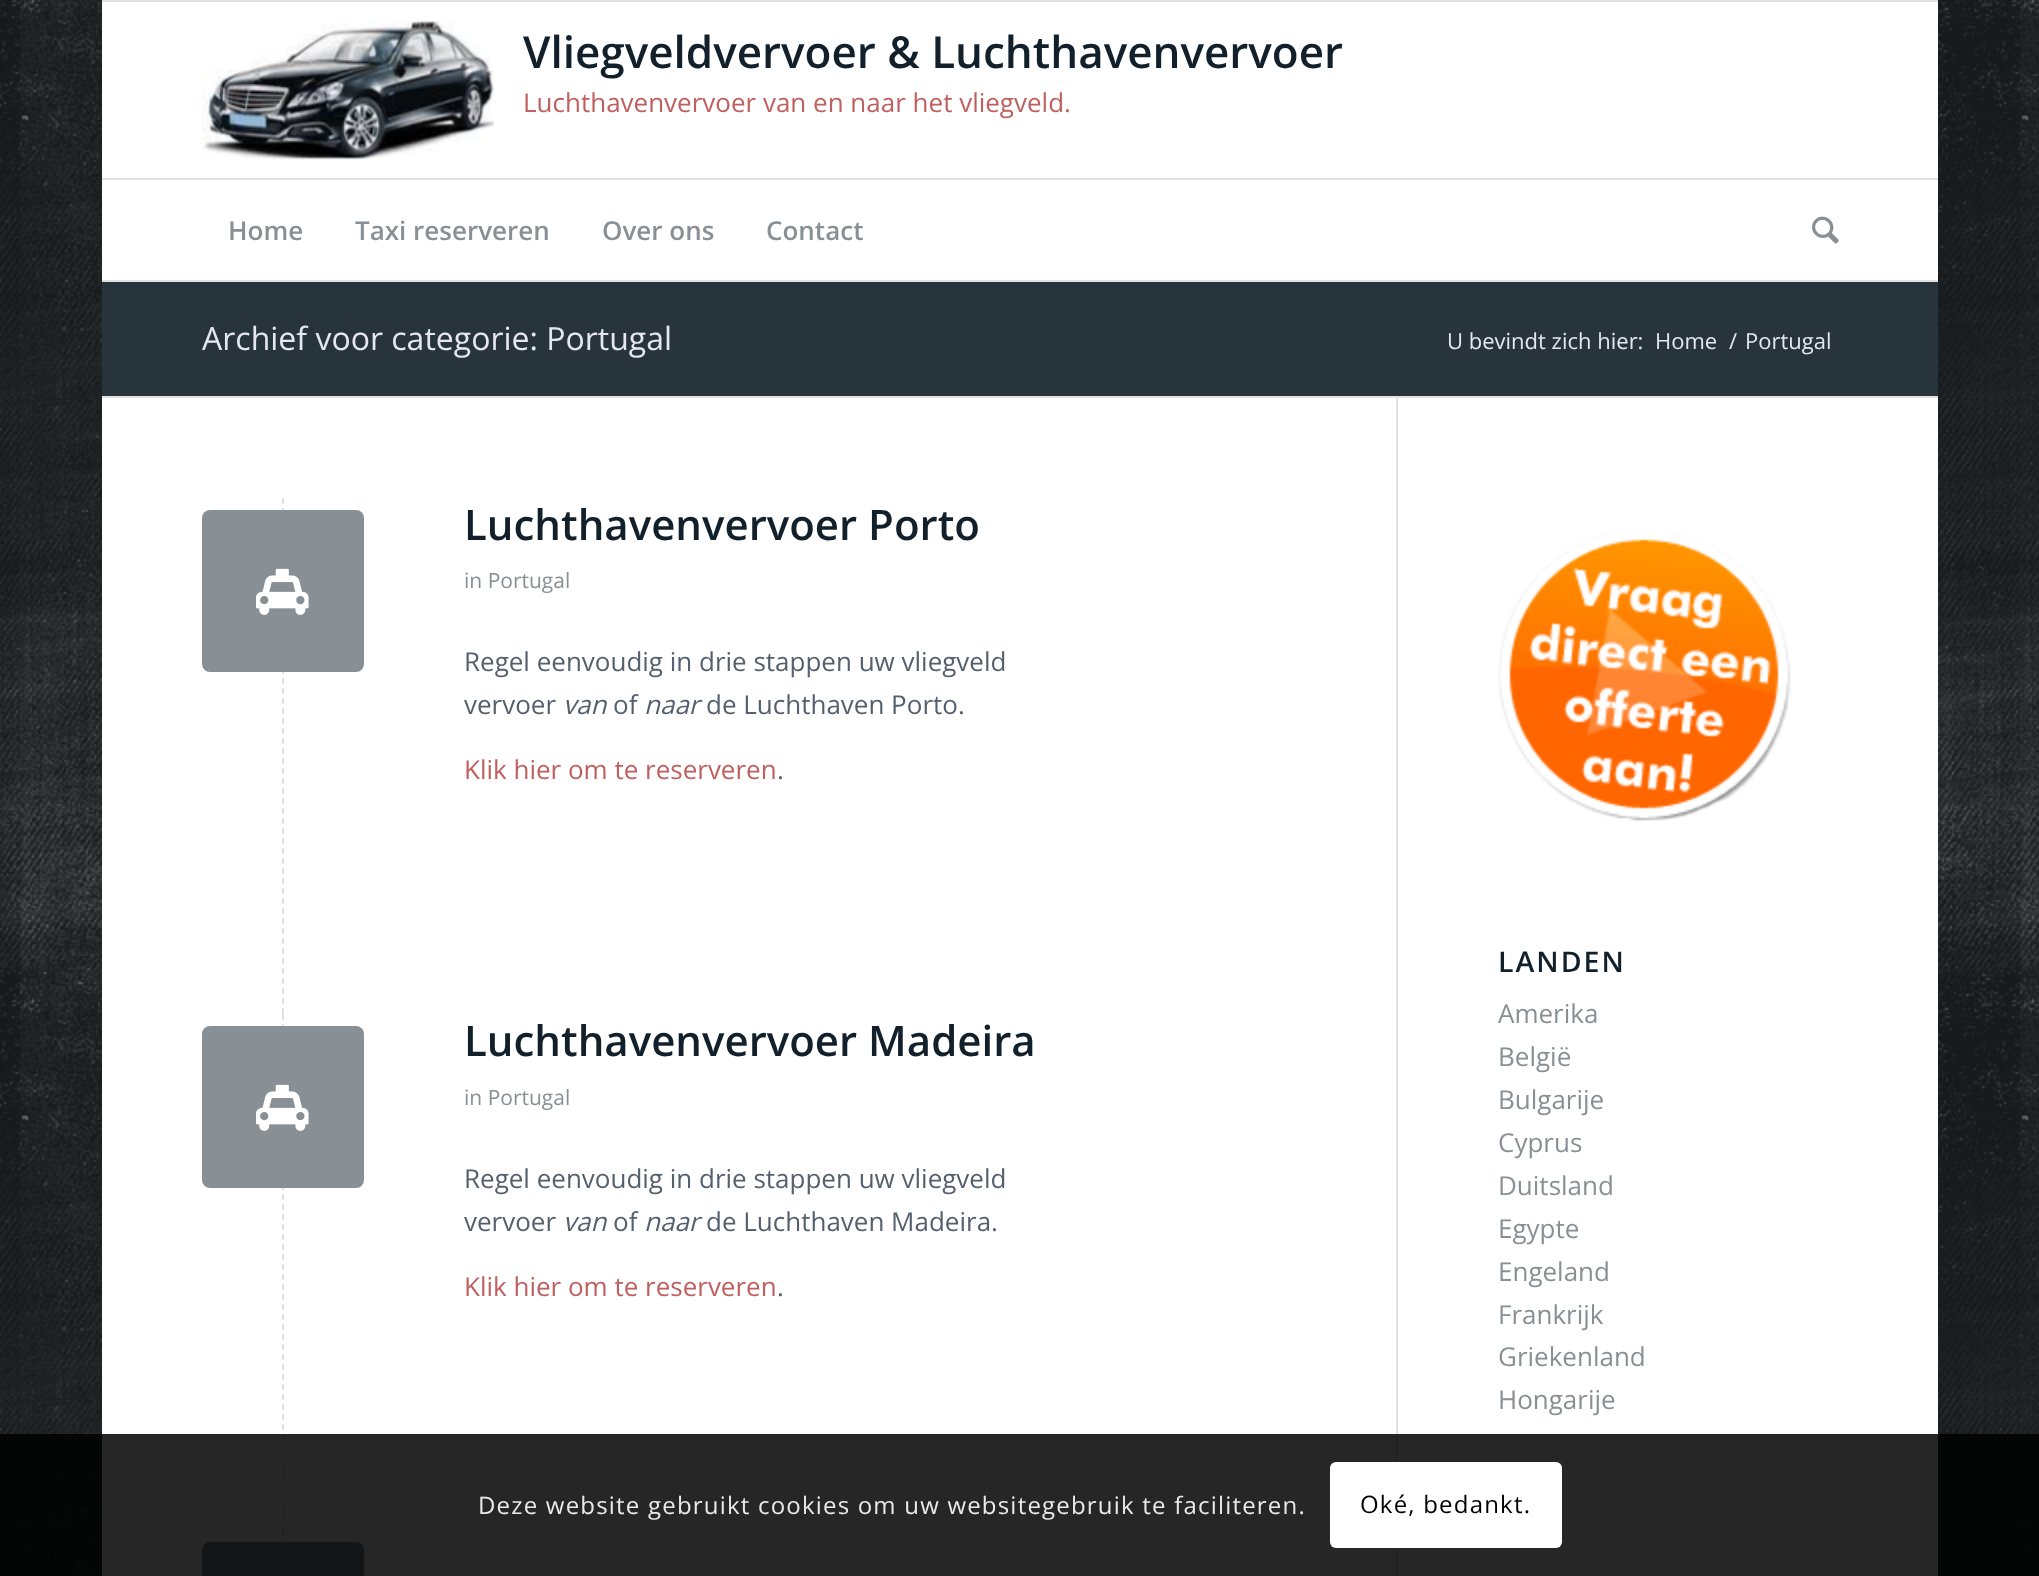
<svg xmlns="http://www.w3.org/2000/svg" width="2039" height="1576">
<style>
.a{font:600 44px Open Sans;fill:#11202a}
.b{font:26px Open Sans;fill:#c05f5f}
.c{font:600 26px Open Sans;fill:#889095}
.d{font:32px Open Sans;fill:#e4e6f0}
.e{font:22px Open Sans;fill:#e4e6f0}
.f{font:600 42px Open Sans;fill:#11202a}
.g{font:21px Open Sans;fill:#889095}
.h{font:26px Open Sans;fill:#55606e}
.i{font:italic 26px Open Sans;fill:#55606e}
.j{font:600 28.5px Open Sans;letter-spacing:2px;fill:#11202a}
.k{font:26px Open Sans;fill:#889095}
.l{font:24px Open Sans;letter-spacing:1.2px;fill:#e9e9e9}
.m{font:24px Open Sans;letter-spacing:1.2px;fill:#000}
</style>
<rect width="100%" height="100%" fill="#161a1c"/>
<image href="1.png" x="0" y="0" width="2039" height="1576"/>
<path fill="#e1e1e1" d="M102 0h1836v2H102z"/>
<path fill="#fff" d="M102 2h1836v1574H102z"/>
<path fill="#e1e1e1" d="M102 280h1836v2H102z"/>
<image href="2.png" x="202" y="21" width="292" height="139"/>
<path fill="#e1e1e1" d="M102 178h1836v2H102z"/>
<image href="3.png" x="1812" y="216" width="27" height="28"/>
<path fill="#28343c" d="M102 282h1836v114H102z"/>
<path fill="#e1e1e1" d="M102 396h1836v2H102z"/>
<path fill="#e1e1e1" d="M1396 398h2v1178H1396z"/>
<path fill="none" stroke="#e1e1e1" stroke-width="2" stroke-dasharray="6 4" d="M283 498v516"/>
<rect fill="#889095" x="202" y="510" width="162" height="162" rx="8"/>
<image href="4.png" x="256" y="568" width="53" height="47"/>
<path fill="none" stroke="#e1e1e1" stroke-width="2" stroke-dasharray="6 4" d="M283 1014v516"/>
<rect fill="#889095" x="202" y="1026" width="162" height="162" rx="8"/>
<image href="4.png" x="256" y="1084" width="53" height="47"/>
<path fill="none" stroke="#e1e1e1" stroke-width="2" stroke-dasharray="6 4.04" d="M283 1530v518"/>
<rect fill="#889095" x="202" y="1542" width="162" height="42" rx="8"/>
<image href="5.png" x="1498" y="532" width="293" height="290"/>
<path fill="#000000d9" d="M0 1434h2039v142H0z"/>
<rect fill="#fff" x="1330" y="1462" width="232" height="86" rx="6"/>
<text class="a" x="523" y="68">Vliegveldvervoer &amp; Luchthavenvervoer</text>
<text class="b" x="523" y="112">Luchthavenvervoer van en naar het vliegveld.</text>
<text class="c" x="228" y="240">Home</text>
<text class="c" x="355" y="240">Taxi reserveren</text>
<text class="c" x="602" y="240">Over ons</text>
<text class="c" x="766" y="240">Contact</text>
<text class="d" x="202" y="350">Archief voor categorie: Portugal</text>
<text class="e" x="1447" y="349">U bevindt zich hier:</text>
<text class="e" x="1655" y="349">Home</text>
<text class="e" x="1729" y="349">/</text>
<text class="e" x="1745" y="349">Portugal</text>
<text class="f" x="464" y="540">Luchthavenvervoer Porto</text>
<text class="g" x="464" y="588">in Portugal</text>
<text class="h" x="464" y="671">Regel eenvoudig in drie stappen uw vliegveld</text>
<text class="h" x="464" y="714">vervoer</text>
<text class="i" x="563" y="714">van</text>
<text class="h" x="613" y="714">of</text>
<text class="i" x="644" y="714">naar</text>
<text class="h" x="706" y="714">de Luchthaven Porto.</text>
<text class="b" x="464" y="779">Klik hier om te reserveren</text>
<text class="h" x="777" y="779">.</text>
<text class="f" x="464" y="1056">Luchthavenvervoer Madeira</text>
<text class="g" x="464" y="1105">in Portugal</text>
<text class="h" x="464" y="1188">Regel eenvoudig in drie stappen uw vliegveld</text>
<text class="h" x="464" y="1231">vervoer</text>
<text class="i" x="563" y="1231">van</text>
<text class="h" x="613" y="1231">of</text>
<text class="i" x="644" y="1231">naar</text>
<text class="h" x="706" y="1231">de Luchthaven Madeira.</text>
<text class="b" x="464" y="1296">Klik hier om te reserveren</text>
<text class="h" x="777" y="1296">.</text>
<text class="j" x="1498" y="972">LANDEN</text>
<text class="k" x="1498" y="1023">Amerika</text>
<text class="k" x="1498" y="1066">België</text>
<text class="k" x="1498" y="1109">Bulgarije</text>
<text class="k" x="1498" y="1152">Cyprus</text>
<text class="k" x="1498" y="1195">Duitsland</text>
<text class="k" x="1498" y="1238">Egypte</text>
<text class="k" x="1498" y="1281">Engeland</text>
<text class="k" x="1498" y="1324">Frankrijk</text>
<text class="k" x="1498" y="1366">Griekenland</text>
<text class="k" x="1498" y="1409">Hongarije</text>
<text class="l" x="478" y="1514">Deze website gebruikt cookies om uw websitegebruik te faciliteren.</text>
<text class="m" x="1360" y="1513">Oké, bedankt.</text>
</svg>
